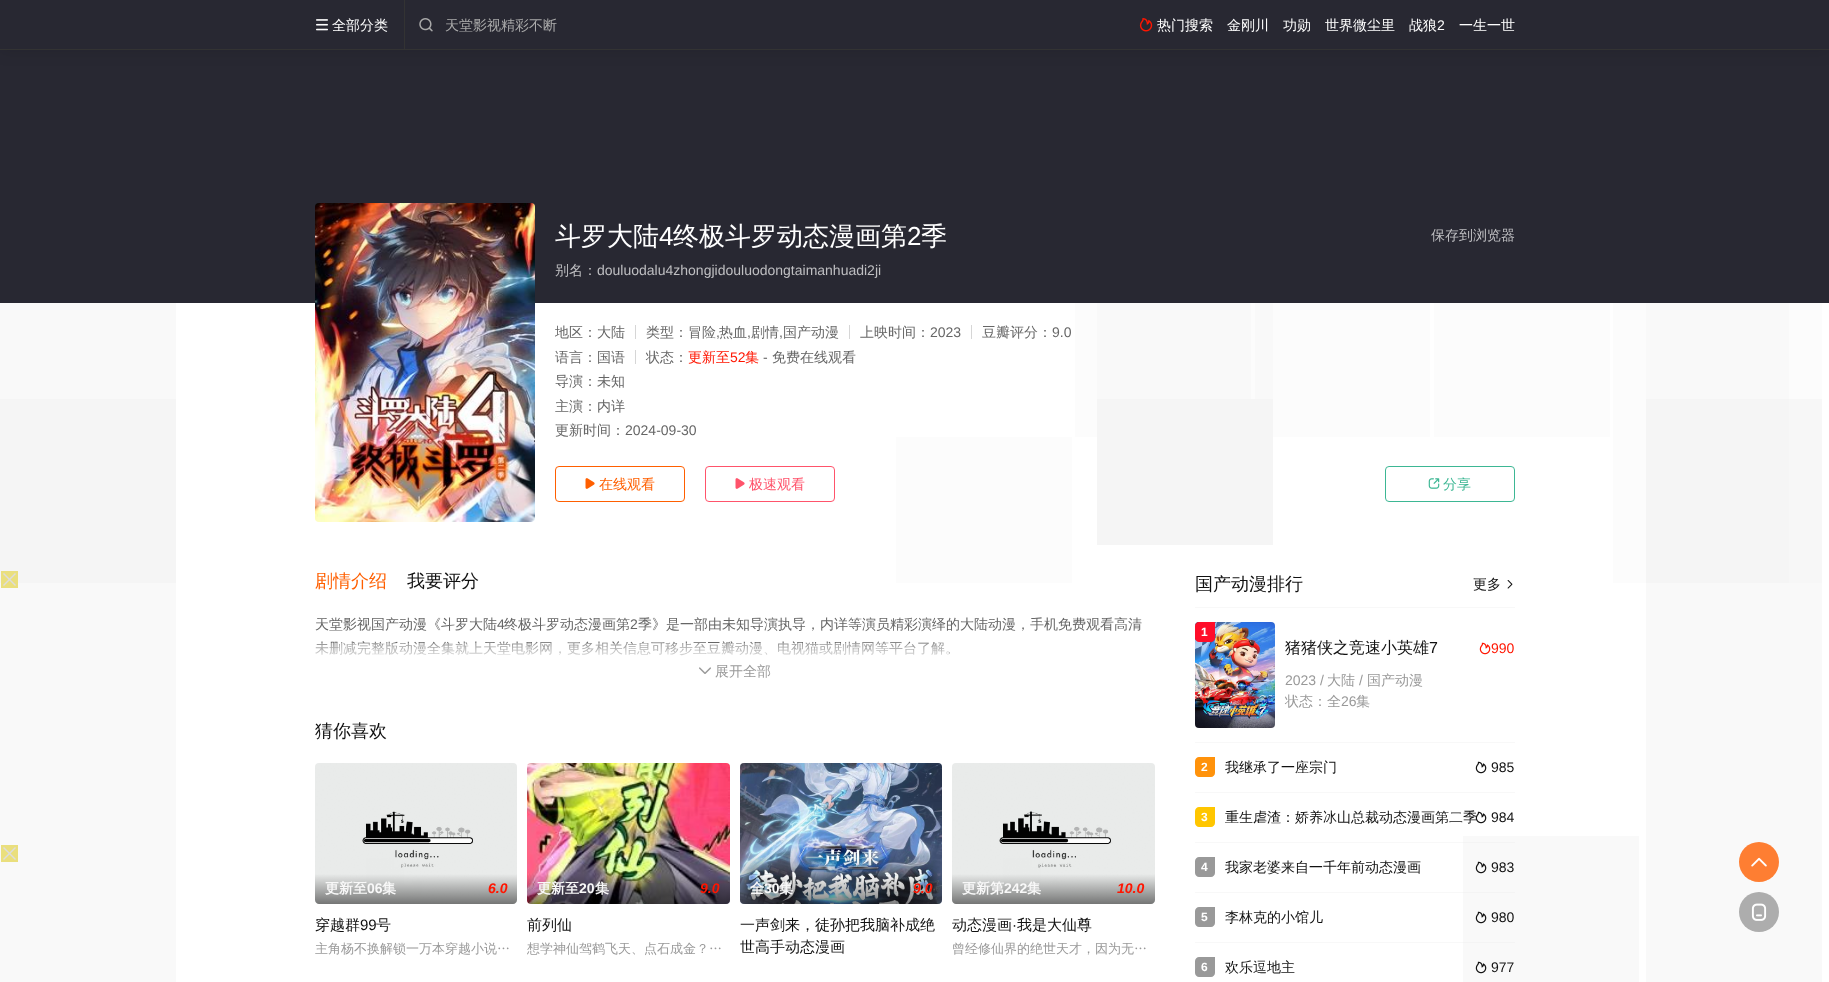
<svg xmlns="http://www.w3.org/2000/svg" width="1829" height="982">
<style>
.a{font:500 14px WenQuanYi Zen Hei;fill:#fff}
.b{font:500 14px WenQuanYi Zen Hei;fill:#aaa}
.c{font:14px Liberation Sans;fill:#fff}
.d{font:500 26px WenQuanYi Zen Hei;fill:#fff}
.e{font:26px Liberation Sans;fill:#fff}
.f{font:500 14px WenQuanYi Zen Hei;fill:#bfbfc2}
.g{font:14px Liberation Sans;fill:#bfbfc2}
.h{font:500 14px WenQuanYi Zen Hei;fill:#666}
.i{font:14px Liberation Sans;fill:#666}
.j{font:500 14px WenQuanYi Zen Hei;fill:#ff1500}
.k{font:14px Liberation Sans;fill:#ff1500}
.l{font:500 14px WenQuanYi Zen Hei;fill:#ff5f00}
.m{font:500 14px WenQuanYi Zen Hei;fill:#ff536b}
.n{font:500 14px WenQuanYi Zen Hei;fill:#3db794}
.o{font:500 18px WenQuanYi Zen Hei;fill:#ff5f00}
.p{font:500 18px WenQuanYi Zen Hei;fill:#111}
.q{font:500 14px WenQuanYi Zen Hei;fill:#999}
.r{font:bold 14px WenQuanYi Zen Hei;fill:#f8f8f8}
.s{font:bold 14px Liberation Sans;fill:#f8f8f8}
.t{font:italic bold 14px Liberation Sans;fill:#ff1500}
.u{font:500 15px WenQuanYi Zen Hei;fill:#111}
.v{font:15px Liberation Sans;fill:#111}
.w{font:500 13px WenQuanYi Zen Hei;fill:#999}
.x{font:500 14px WenQuanYi Zen Hei;fill:#111}
.y{font:bold 12px Liberation Sans;fill:#fff}
.z{font:500 16px WenQuanYi Zen Hei;fill:#111}
.a1{font:16px Liberation Sans;fill:#111}
.b1{font:14px Liberation Sans;fill:#999}
.c1{font:14px Liberation Sans;fill:#111}
</style>
<defs>
<linearGradient id="g1" gradientUnits="userSpaceOnUse" x1="416" y1="874" x2="416" y2="904"><stop offset="0" stop-color="#000" stop-opacity="0"/><stop offset="1" stop-color="#000" stop-opacity="0.5"/></linearGradient>
<linearGradient id="g2" gradientUnits="userSpaceOnUse" x1="629" y1="874" x2="629" y2="904"><stop offset="0" stop-color="#000" stop-opacity="0"/><stop offset="1" stop-color="#000" stop-opacity="0.5"/></linearGradient>
<linearGradient id="g3" gradientUnits="userSpaceOnUse" x1="841" y1="874" x2="841" y2="904"><stop offset="0" stop-color="#000" stop-opacity="0"/><stop offset="1" stop-color="#000" stop-opacity="0.5"/></linearGradient>
<linearGradient id="g4" gradientUnits="userSpaceOnUse" x1="1054" y1="874" x2="1054" y2="904"><stop offset="0" stop-color="#000" stop-opacity="0"/><stop offset="1" stop-color="#000" stop-opacity="0.5"/></linearGradient>
<clipPath id="clip1"><path d="M555 323h960v20H555z"/></clipPath>
<linearGradient id="g5" gradientUnits="userSpaceOnUse" x1="735" y1="643" x2="735" y2="663"><stop offset="0" stop-color="#fff" stop-opacity="0.3"/><stop offset="1" stop-color="#fff"/></linearGradient>
</defs>
<rect width="100%" height="100%" fill="#fff"/>
<path fill="#f7f7f7" d="M1789 399h33v184H1789z"/>
<path fill="#f9f9f9" d="M1646 583h176v108H1646z"/>
<path fill="#f9f9f9" d="M0 583h176v108H0z"/>
<path fill="#f9f9f9" d="M1463 836h176v146H1463z"/>
<path fill="#282832" d="M0 50h1829v253H0z"/>
<path fill="#0000001a" filter="blur(7.5px)" d="M0 -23h1829v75H0z"/>
<path fill="#282832" d="M0 0h1829v49H0z"/>
<path fill="#333" d="M404 0h1v50H404z"/>
<image href="1.png" x="316" y="19" width="12" height="12"/>
<image href="2.png" x="419" y="18" width="14" height="14"/>
<image href="3.png" x="1139" y="18" width="14" height="14"/>
<path fill="#333" d="M0 49h1829v1H0z"/>
<path fill="#f5f5f5" d="M0 399h176v184H0z"/>
<path fill="#fcfcfc" d="M1789 303h33v96H1789z"/>
<path fill="#fcfcfc" d="M1251 303h4v96H1251z"/>
<path fill="#fcfcfc" d="M1613 303h33v280H1613z"/>
<path fill="#f9f9f9" d="M1646 303h143v96H1646z"/>
<path fill="#f5f5f5" d="M1646 399h143v184H1646z"/>
<path fill="#fcfcfc" d="M1434 303h176v134H1434z"/>
<path fill="#fcfcfc" d="M1273 303h157v134H1273z"/>
<path fill="#f9f9f9" d="M1255 303h18v96H1255z"/>
<path fill="#fcfcfc" d="M1075 303h22v134H1075z"/>
<path fill="#f9f9f9" d="M1097 303h154v96H1097z"/>
<path fill="#f9f9f9" d="M0 303h176v96H0z"/>
<image href="4.png" x="315" y="203" width="220" height="319"/>
<path fill="#d6d6d6" d="M635 325h1v14H635z"/>
<path fill="#d6d6d6" d="M849 325h1v14H849z"/>
<path fill="#d6d6d6" d="M971 325h1v14H971z"/>
<path fill="#d6d6d6" d="M635 350h1v14H635z"/>
<rect fill="none" stroke="#ff5f00" x="555.5" y="466.5" width="129" height="35" rx="3.5"/>
<image href="5.png" x="585" y="478" width="10" height="11"/>
<rect fill="none" stroke="#ff536b" x="705.5" y="466.5" width="129" height="35" rx="3.5"/>
<image href="6.png" x="735" y="478" width="10" height="11"/>
<rect fill="none" stroke="#3db794" x="1385.5" y="466.5" width="129" height="35" rx="3.5"/>
<image href="7.png" x="1428" y="478" width="12" height="11"/>
<path fill="#eadf7d" d="M1 571h17v17H1z"/>
<path fill="#ddd" d="M4 573l12 12l-1 1l-12-12z"/>
<path fill="#ddd" d="M3 585l12-12l1 1l-12 12z"/>
<path fill="#fcfcfc" d="M896 437h176v146H896z"/>
<path fill="#f5f5f5" d="M1097 399h176v146H1097z"/>
<path fill="#f9f9f9" d="M0 691h176v291H0z"/>
<image href="8.png" x="699" y="667" width="12" height="7"/>
<image href="9.png" x="315" y="763" width="202" height="141"/>
<path fill="url(#g1)" d="M315 874h202v26c0 2-2 4-4 4h-194c-2 0-4-2-4-4z"/>
<image href="10.png" x="527" y="763" width="203" height="141"/>
<path fill="url(#g2)" d="M527 874h203v26c0 2-2 4-4 4h-195c-2 0-4-2-4-4z"/>
<image href="11.png" x="740" y="763" width="202" height="141"/>
<path fill="url(#g3)" d="M740 874h202v26c0 2-2 4-4 4h-194c-2 0-4-2-4-4z"/>
<image href="12.png" x="952" y="763" width="203" height="141"/>
<path fill="url(#g4)" d="M952 874h203v26c0 2-2 4-4 4h-195c-2 0-4-2-4-4z"/>
<image href="13.png" x="1507" y="580" width="6" height="9"/>
<path fill="#f8f8f8" d="M1195 607h320v1H1195z"/>
<image href="14.png" x="1195" y="622" width="80" height="106"/>
<path fill="#ff0d29" d="M1199 622h16v16c0 2-2 4-4 4h-12c-2 0-4-2-4-4v-12c0-2 2-4 4-4z"/>
<image href="15.png" x="1479" y="642" width="12" height="13"/>
<path fill="#f8f8f8" d="M1195 742h320v1H1195z"/>
<path fill="#ff920b" d="M1199 757h16v16c0 2-2 4-4 4h-12c-2 0-4-2-4-4v-12c0-2 2-4 4-4z"/>
<image href="16.png" x="1475" y="761" width="12" height="13"/>
<path fill="#f8f8f8" d="M1195 792h320v1H1195z"/>
<path fill="#ffc600" d="M1199 807h16v16c0 2-2 4-4 4h-12c-2 0-4-2-4-4v-12c0-2 2-4 4-4z"/>
<image href="16.png" x="1475" y="811" width="12" height="13"/>
<path fill="#f8f8f8" d="M1195 842h268v1H1195z"/>
<path fill="#f4f4f4" d="M1463 842h52v1H1463z"/>
<path fill="#999" d="M1199 857h16v16c0 2-2 4-4 4h-12c-2 0-4-2-4-4v-12c0-2 2-4 4-4z"/>
<image href="17.png" x="1475" y="861" width="12" height="13"/>
<path fill="#f8f8f8" d="M1195 892h268v1H1195z"/>
<path fill="#f4f4f4" d="M1463 892h52v1H1463z"/>
<path fill="#999" d="M1199 907h16v16c0 2-2 4-4 4h-12c-2 0-4-2-4-4v-12c0-2 2-4 4-4z"/>
<image href="17.png" x="1475" y="911" width="12" height="13"/>
<path fill="#f8f8f8" d="M1195 942h268v1H1195z"/>
<path fill="#f4f4f4" d="M1463 942h52v1H1463z"/>
<path fill="#999" d="M1199 957h16v16c0 2-2 4-4 4h-12c-2 0-4-2-4-4v-12c0-2 2-4 4-4z"/>
<image href="17.png" x="1475" y="961" width="12" height="13"/>
<path fill="#f9f9f9" d="M1646 691h176v291H1646z"/>
<path fill="#eadf7d" d="M1 845h17v17H1z"/>
<path fill="#ddd" d="M4 847l12 12l-1 1l-12-12z"/>
<path fill="#ddd" d="M3 859l12-12l1 1l-12 12z"/>
<circle fill="#fe7e32" cx="1759" cy="862" r="20"/>
<image href="18.png" x="1751" y="857" width="16" height="10"/>
<circle fill="#adadad" cx="1759" cy="912" r="20"/>
<image href="19.png" x="1751" y="903" width="16" height="18"/>
<text class="a" x="332" y="30">全部分类</text>
<text class="b" x="445" y="30">天堂影视精彩不断</text>
<text class="a" x="1157" y="30">热门搜索</text>
<text class="a" x="1227" y="30">金刚川</text>
<text class="a" x="1283" y="30">功勋</text>
<text class="a" x="1325" y="30">世界微尘里</text>
<text class="a" x="1409" y="30">战狼</text>
<text class="c" x="1437" y="30">2</text>
<text class="a" x="1459" y="30">一生一世</text>
<text class="d" x="555" y="245">斗罗大陆</text>
<text class="e" x="659" y="245">4</text>
<text class="d" x="673" y="245">终极斗罗动态漫画第</text>
<text class="e" x="907" y="245">2</text>
<text class="d" x="921" y="245">季</text>
<text class="f" x="1431" y="240">保存到浏览器</text>
<text class="f" x="555" y="275">别名：</text>
<text class="g" x="597" y="275">douluodalu4zhongjidouluodongtaimanhuadi2ji</text>
<g clip-path="url(#clip1)">
<text class="h" x="555" y="337">地区：</text>
</g>
<text class="h" x="597" y="337">大陆</text>
<text class="h" x="646" y="337">类型：冒险</text>
<text class="i" x="716" y="337">,</text>
<text class="h" x="719" y="337">热血</text>
<text class="i" x="747" y="337">,</text>
<text class="h" x="751" y="337">剧情</text>
<text class="i" x="779" y="337">,</text>
<text class="h" x="783" y="337">国产动漫</text>
<text class="h" x="860" y="337">上映时间：</text>
<text class="i" x="930" y="337">2023</text>
<text class="h" x="982" y="337">豆瓣评分：</text>
<text class="i" x="1052" y="337">9.0</text>
<text class="h" x="555" y="362">语言：国语</text>
<text class="h" x="646" y="362">状态：</text>
<text class="j" x="688" y="362">更新至</text>
<text class="k" x="730" y="362">52</text>
<text class="j" x="745" y="362">集</text>
<text class="i" x="763" y="362">-</text>
<text class="h" x="772" y="362">免费在线观看</text>
<text class="h" x="555" y="386">导演：未知</text>
<text class="h" x="555" y="411">主演：内详</text>
<text class="h" x="555" y="435">更新时间：</text>
<text class="i" x="625" y="435">2024-09-30</text>
<text class="l" x="599" y="489">在线观看</text>
<text class="m" x="749" y="489">极速观看</text>
<text class="n" x="1443" y="489">分享</text>
<text class="o" x="315" y="587">剧情介绍</text>
<text class="p" x="407" y="587">我要评分</text>
<text class="h" x="315" y="629">天堂影视国产动漫《斗罗大陆</text>
<text class="i" x="497" y="629">4</text>
<text class="h" x="504" y="629">终极斗罗动态漫画第</text>
<text class="i" x="630" y="629">2</text>
<text class="h" x="638" y="629">季》是一部由未知导演执导，内详等演员精彩演绎的大陆动漫，手机免费观看高清</text>
<text class="h" x="315" y="653">未删减完整版动漫全集就上天堂电影网，更多相关信息可移步至豆瓣动漫、电视猫或剧情网等平台了解。</text>
<path fill="url(#g5)" d="M315 643h634v13H315z"/>
<text class="q" x="715" y="676">展开全部</text>
<text class="p" x="315" y="737">猜你喜欢</text>
<text class="r" x="325" y="893">更新至</text>
<text class="s" x="367" y="893">06</text>
<text class="r" x="382" y="893">集</text>
<text class="t" x="488" y="893">6.0</text>
<text class="u" x="315" y="930">穿越群</text>
<text class="v" x="360" y="930">99</text>
<text class="u" x="376" y="930">号</text>
<text class="w" x="315" y="953">主角杨不换解锁一万本穿越小说…</text>
<text class="r" x="537" y="893">更新至</text>
<text class="s" x="579" y="893">20</text>
<text class="r" x="595" y="893">集</text>
<text class="t" x="700" y="893">9.0</text>
<text class="u" x="527" y="930">前列仙</text>
<text class="w" x="527" y="953">想学神仙驾鹤飞天、点石成金？…</text>
<text class="r" x="750" y="893">全</text>
<text class="s" x="764" y="893">30</text>
<text class="r" x="779" y="893">集</text>
<text class="t" x="913" y="893">9.0</text>
<text class="u" x="740" y="930">一声剑来，徒孙把我脑补成绝</text>
<text class="u" x="740" y="952">世高手动态漫画</text>
<text class="r" x="962" y="893">更新第</text>
<text class="s" x="1004" y="893">242</text>
<text class="r" x="1027" y="893">集</text>
<text class="t" x="1117" y="893">10.0</text>
<text class="u" x="952" y="930">动态漫画</text>
<text class="v" x="1012" y="930">·</text>
<text class="u" x="1017" y="930">我是大仙尊</text>
<text class="w" x="952" y="953">曾经修仙界的绝世天才，因为无…</text>
<text class="p" x="1195" y="590">国产动漫排行</text>
<text class="x" x="1473" y="589">更多</text>
<text class="y" x="1201" y="636">1</text>
<text class="z" x="1285" y="653">猪猪侠之竞速小英雄</text>
<text class="a1" x="1429" y="653">7</text>
<text class="k" x="1491" y="653">990</text>
<text class="b1" x="1285" y="685">2023 /</text>
<text class="q" x="1327" y="685">大陆</text>
<text class="b1" x="1359" y="685">/</text>
<text class="q" x="1367" y="685">国产动漫</text>
<text class="q" x="1285" y="706">状态：全</text>
<text class="b1" x="1341" y="706">26</text>
<text class="q" x="1356" y="706">集</text>
<text class="y" x="1201" y="771">2</text>
<text class="x" x="1225" y="772">我继承了一座宗门</text>
<text class="c1" x="1491" y="772">985</text>
<text class="y" x="1201" y="821">3</text>
<text class="x" x="1225" y="822">重生虐渣：娇养冰山总裁动态漫画第二季</text>
<text class="c1" x="1491" y="822">984</text>
<text class="y" x="1201" y="871">4</text>
<text class="x" x="1225" y="872">我家老婆来自一千年前动态漫画</text>
<text class="c1" x="1491" y="872">983</text>
<text class="y" x="1201" y="921">5</text>
<text class="x" x="1225" y="922">李林克的小馆儿</text>
<text class="c1" x="1491" y="922">980</text>
<text class="y" x="1201" y="971">6</text>
<text class="x" x="1225" y="972">欢乐逗地主</text>
<text class="c1" x="1491" y="972">977</text>
</svg>
